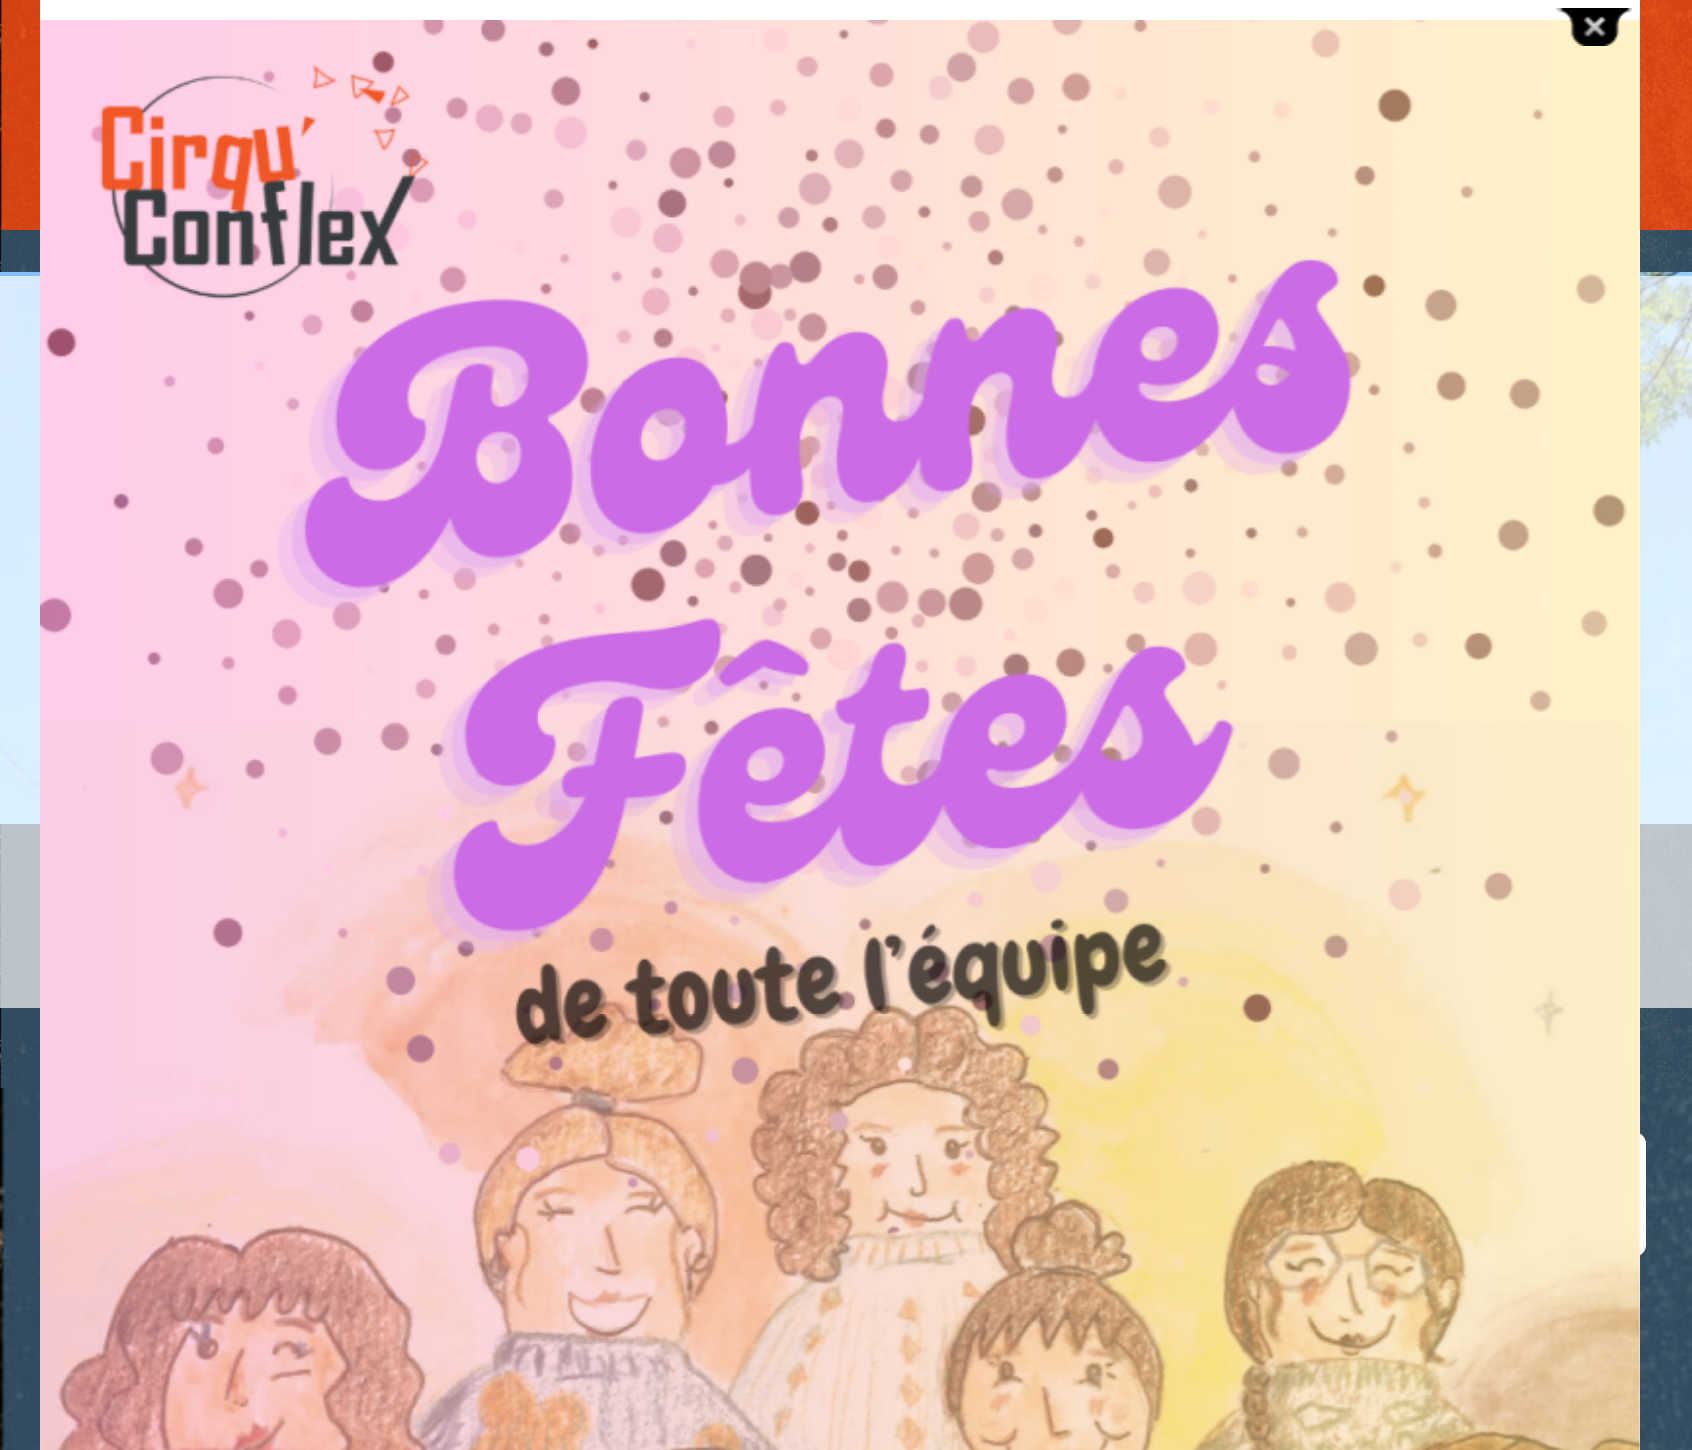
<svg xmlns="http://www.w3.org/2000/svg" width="1692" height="1450">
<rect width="100%" height="100%" fill="#fff"/>
<image href="1.png" x="0" y="0" width="1692" height="230"/>
<image href="2.png" x="0" y="230" width="1692" height="778"/>
<image href="3.png" x="0" y="272" width="1692" height="552"/>
<image href="4.png" x="0" y="1008" width="1692" height="80"/>
<image href="5.png" x="0" y="1088" width="1692" height="362"/>
<image href="6.png" x="1640" y="1133" width="6" height="123"/>
<path fill="#fff" d="M40 0h1600v1450H40z"/>
<image href="7.png" x="40" y="20" width="1600" height="1430"/>
<image href="8.png" x="1556" y="8" width="76" height="38"/>
</svg>
